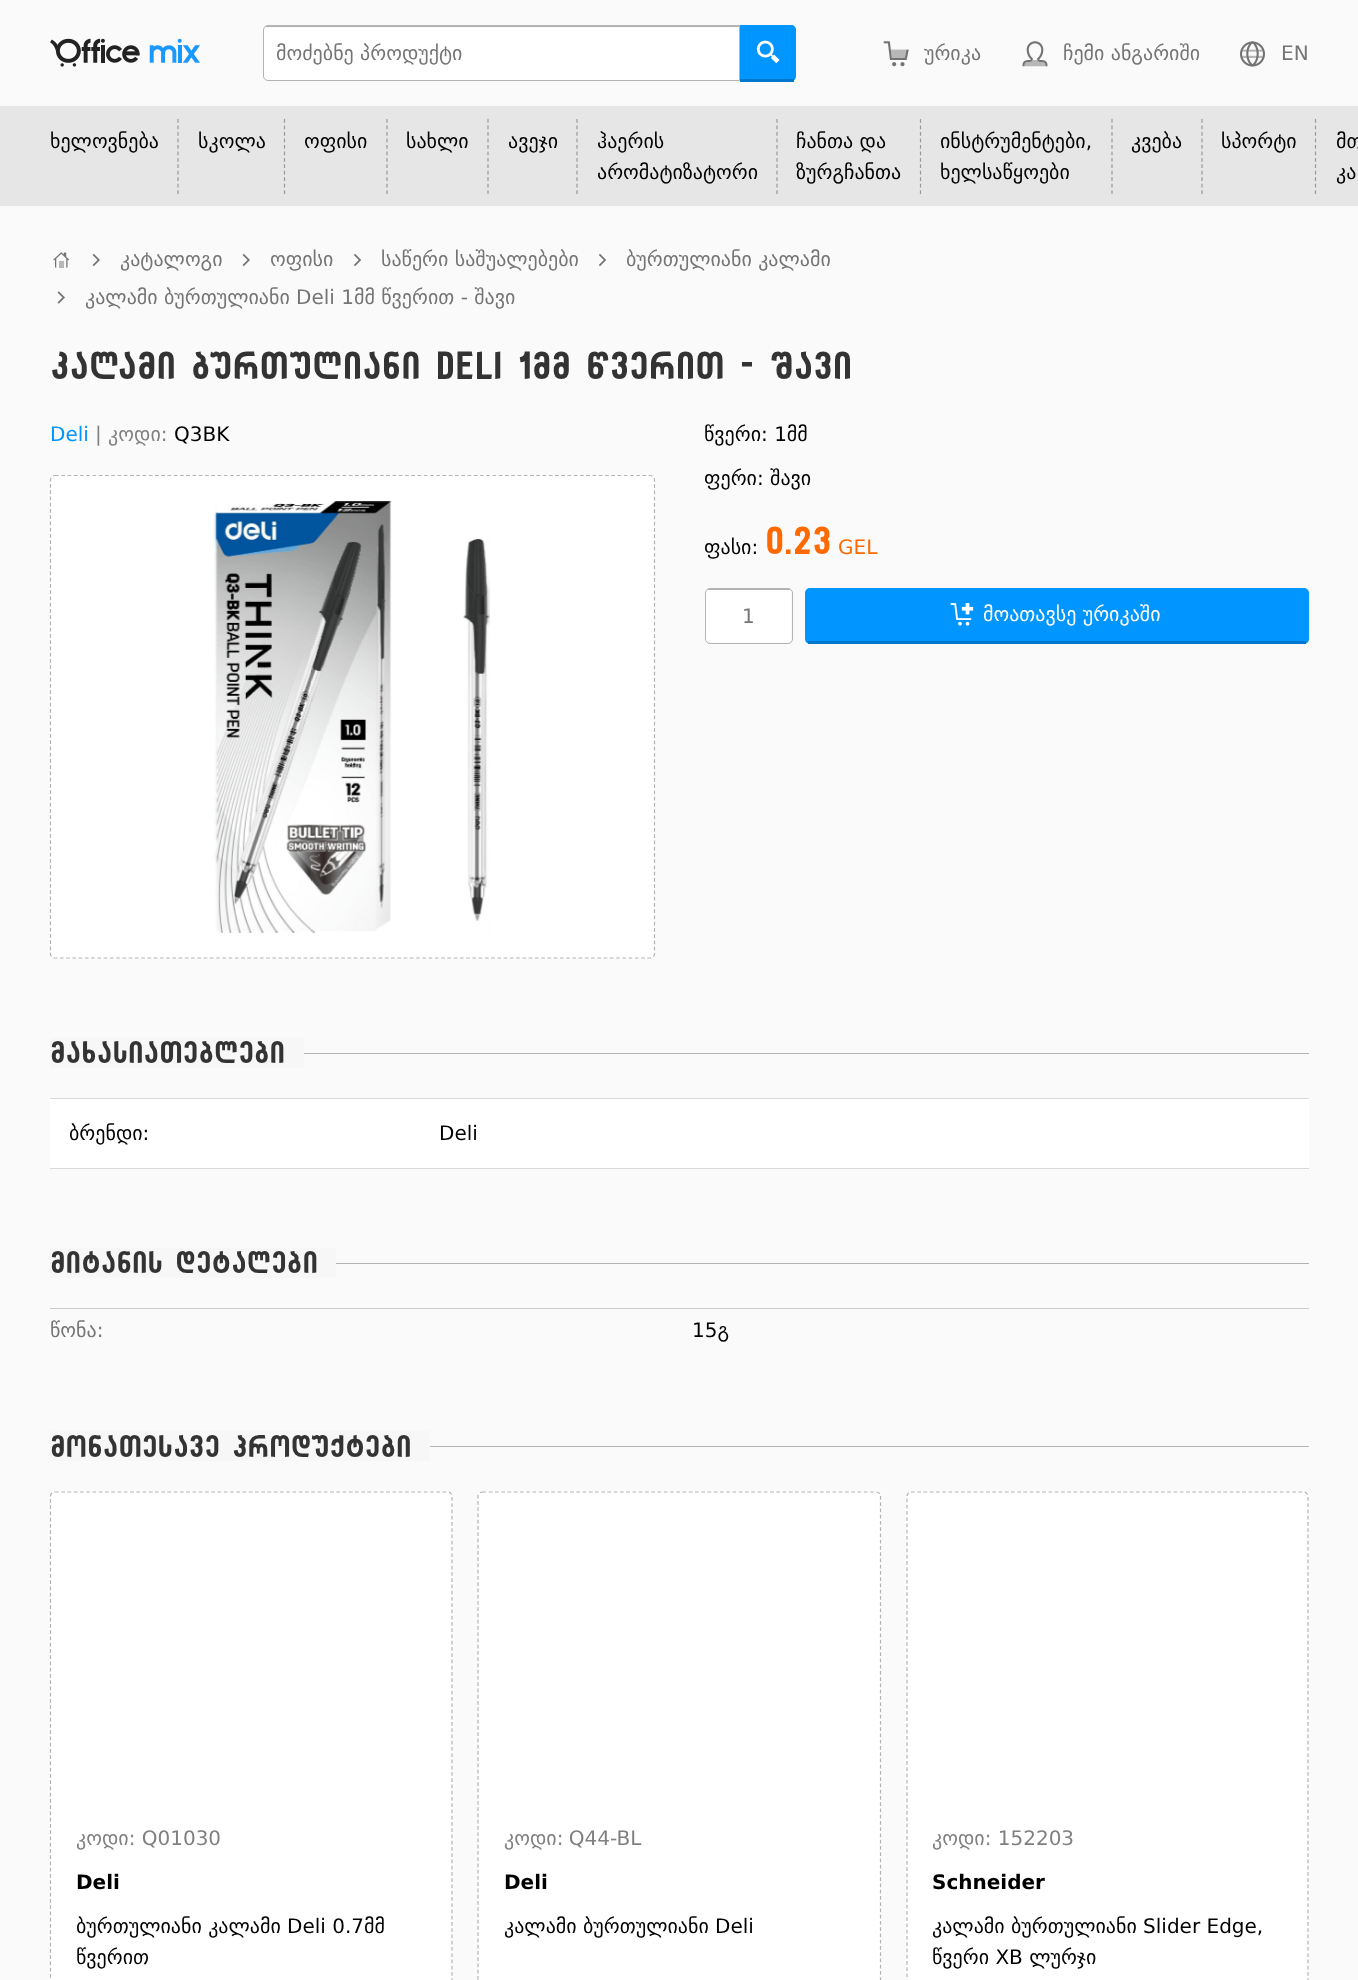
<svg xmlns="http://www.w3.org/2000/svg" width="1358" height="1980">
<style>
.a{font:20px DejaVu Sans;fill:#757575}
.b{font:20px DejaVu Sans;fill:#000}
.c{font:bold 37.5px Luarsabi;fill:#333}
.d{font:20px DejaVu Sans;fill:#0095ff}
.e{font:20px DejaVu Sans;fill:#808080}
.f{font:bold 37.5px Luarsabi;fill:#ff6a00}
.g{font:20px DejaVu Sans;fill:#ff6a00}
.h{font:20px DejaVu Sans;fill:#fff}
.i{font:bold 30px Luarsabi;fill:#333}
.j{font:bold 20px DejaVu Sans;fill:#000}
</style>
<rect width="100%" height="100%" fill="#fafafa"/>
<image href="1.png" x="50" y="38" width="150" height="29"/>
<path fill="#fff" d="M268 28h471v52h-471c-3 0-4-2-4-4v-46c0-1 1-2 4-2z"/>
<path fill="none" stroke="#b3b3b3" d="M268 25.5h471.5v55h-471.5c-2.5 0-4.5-2-4.5-4.5v-46c0-2.5 2-4.5 4.5-4.5z"/>
<path fill="#b3b3b3" d="M265 26h475v1H265z"/>
<path fill="#0095ff" d="M740 25h51c3 0 5 2 5 5v46c0 3-2 5-5 5h-51z"/>
<image href="2.png" x="756" y="40" width="24" height="24"/>
<path fill="#07c" d="M740 79h54v3H740z"/>
<image href="3.png" x="883" y="41" width="26" height="26"/>
<image href="4.png" x="1022" y="41" width="26" height="26"/>
<image href="5.png" x="1240" y="41" width="25" height="26"/>
<path fill="#e6e6e6" d="M0 106h1358v100H0z"/>
<path fill="none" stroke="#999" stroke-width="1.2" stroke-dasharray="3.75 2.73" d="M178 119v75"/>
<path fill="none" stroke="#999" stroke-width="1.2" stroke-dasharray="3.75 2.73" d="M284.5 119v75"/>
<path fill="none" stroke="#999" stroke-width="1.2" stroke-dasharray="3.75 2.73" d="M387 119v75"/>
<path fill="none" stroke="#999" stroke-width="1.2" stroke-dasharray="3.75 2.73" d="M488 119v75"/>
<path fill="none" stroke="#999" stroke-width="1.2" stroke-dasharray="3.75 2.73" d="M577 119v75"/>
<path fill="none" stroke="#999" stroke-width="1.2" stroke-dasharray="3.75 2.73" d="M777 119v75"/>
<path fill="none" stroke="#999" stroke-width="1.2" stroke-dasharray="3.75 2.73" d="M920.5 119v75"/>
<path fill="none" stroke="#999" stroke-width="1.2" stroke-dasharray="3.75 2.73" d="M1112 119v75"/>
<path fill="none" stroke="#999" stroke-width="1.2" stroke-dasharray="3.75 2.73" d="M1202 119v75"/>
<path fill="none" stroke="#999" stroke-width="1.2" stroke-dasharray="3.75 2.73" d="M1315.5 119v75"/>
<image href="6.png" x="53" y="252" width="17" height="16"/>
<image href="7.png" x="92" y="253" width="8" height="14"/>
<image href="7.png" x="242" y="253" width="8" height="14"/>
<image href="8.png" x="354" y="253" width="8" height="14"/>
<image href="8.png" x="599" y="253" width="8" height="14"/>
<image href="9.png" x="57" y="291" width="8" height="13"/>
<rect fill="#fff" x="50" y="475" width="605" height="484" rx="5"/>
<path fill="none" stroke="#b3b3b3" stroke-width="1.2" stroke-dasharray="3.75 2.5" d="M55 475.5h595c2.5 0 4.5 2 4.5 4.5v474c0 2-2 4-4.5 4h-595c-2.5 0-4.5-2-4.5-4v-474c0-2.5 2-4.5 4.5-4.5z"/>
<image href="10.png" x="213" y="501" width="277" height="432"/>
<image href="11.png" x="215" y="501" width="275" height="432"/>
<path fill="#fff" d="M710 590h78c2 0 3 1 3 2v47c0 2-1 3-3 3h-78c-2 0-4-1-4-3v-47c0-1 2-2 4-2z"/>
<rect fill="none" stroke="#b3b3b3" x="705.5" y="588.5" width="87" height="55" rx="4.5"/>
<path fill="#b3b3b3" d="M708 589h82v1H708z"/>
<rect fill="#0095ff" x="805" y="588" width="504" height="56" rx="5"/>
<path fill="#07c" d="M808 641h498v3H808z"/>
<image href="12.png" x="950" y="603" width="24" height="23"/>
<path fill="#f7f7f7" d="M50 1038h254v30H50z"/>
<path fill="#b3b3b3" d="M304 1053h1005v1H304z"/>
<path fill="#d9d9d9" d="M50 1098h1259v1H50z"/>
<path fill="#fff" d="M50 1099h1259v69H50z"/>
<path fill="#d9d9d9" d="M50 1168h1259v1H50z"/>
<path fill="#f7f7f7" d="M50 1248h286v30H50z"/>
<path fill="#b3b3b3" d="M336 1263h973v1H336z"/>
<path fill="#ccc" d="M50 1308h1259v1H50z"/>
<path fill="#f7f7f7" d="M50 1431h380v30H50z"/>
<path fill="#b3b3b3" d="M430 1446h879v1H430z"/>
<path fill="#fff" d="M55 1491h393c3 0 5 2 5 5v484h-403v-484c0-3 2-5 5-5z"/>
<path fill="none" stroke="#b3b3b3" stroke-width="1.2" stroke-dasharray="3.75 2.5" d="M55 1492h392.5c2.5 0 4.5 2 4.5 4v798c0 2-2 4-4.5 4h-392.5c-2.5 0-4.5-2-4.5-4v-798c0-2 2-4 4.5-4z"/>
<path fill="#fff" d="M483 1491h393c3 0 5 2 5 5v484h-403v-484c0-3 2-5 5-5z"/>
<path fill="none" stroke="#b3b3b3" stroke-width="1.2" stroke-dasharray="3.75 2.5" d="M482.5 1492h393.5c2.5 0 4.5 2 4.5 4v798c0 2-2 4-4.5 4h-393.5c-2.5 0-4.5-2-4.5-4v-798c0-2 2-4 4.5-4z"/>
<path fill="#fff" d="M911 1491h393c3 0 5 2 5 5v484h-403v-484c0-3 2-5 5-5z"/>
<path fill="none" stroke="#b3b3b3" stroke-width="1.2" stroke-dasharray="3.75 2.5" d="M911 1492h393c2 0 4 2 4 4v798c0 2-2 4-4 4h-393c-2 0-4-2-4-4v-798c0-2 2-4 4-4z"/>
<text class="a" x="276" y="60">მოძებნე პროდუქტი</text>
<text class="a" x="924" y="60">ურიკა</text>
<text class="a" x="1063" y="60">ჩემი ანგარიში</text>
<text class="a" x="1281" y="60">EN</text>
<text class="b" x="50" y="148">ხელოვნება</text>
<text class="b" x="198" y="148">სკოლა</text>
<text class="b" x="304" y="148">ოფისი</text>
<text class="b" x="406" y="148">სახლი</text>
<text class="b" x="508" y="148">ავეჯი</text>
<text class="b" x="597" y="148">ჰაერის</text>
<text class="b" x="597" y="179">არომატიზატორი</text>
<text class="b" x="796" y="148">ჩანთა და</text>
<text class="b" x="796" y="179">ზურგჩანთა</text>
<text class="b" x="940" y="148">ინსტრუმენტები,</text>
<text class="b" x="940" y="179">ხელსაწყოები</text>
<text class="b" x="1131" y="148">კვება</text>
<text class="b" x="1221" y="148">სპორტი</text>
<text class="b" x="1336" y="148">მთ</text>
<text class="b" x="1336" y="179">კა</text>
<text class="a" x="120" y="266">კატალოგი</text>
<text class="a" x="270" y="266">ოფისი</text>
<text class="a" x="381" y="266">საწერი საშუალებები</text>
<text class="a" x="626" y="266">ბურთულიანი კალამი</text>
<text class="a" x="85" y="304">კალამი ბურთულიანი Deli 1მმ წვერით - შავი</text>
<text class="c" x="50" y="379">კალამი ბურთულიანი Deli 1მმ წვერით - შავი</text>
<text class="d" x="50" y="441">Deli</text>
<text class="e" x="95" y="441">| კოდი:</text>
<text class="b" x="174" y="441">Q3BK</text>
<text class="b" x="704" y="441">წვერი: 1მმ</text>
<text class="b" x="704" y="485">ფერი: შავი</text>
<text class="b" x="704" y="554">ფასი:</text>
<text class="f" x="765" y="554">0.23</text>
<text class="g" x="838" y="554">GEL</text>
<text class="a" x="742" y="623">1</text>
<text class="h" x="983" y="621">მოათავსე ურიკაში</text>
<text class="i" x="50" y="1063">მახასიათებლები</text>
<text class="b" x="69" y="1140">ბრენდი:</text>
<text class="b" x="439" y="1140">Deli</text>
<text class="i" x="50" y="1273">მიტანის დეტალები</text>
<text class="a" x="50" y="1337">წონა:</text>
<text class="b" x="692" y="1337">15გ</text>
<text class="i" x="50" y="1457">მონათესავე პროდუქტები</text>
<text class="e" x="76" y="1845">კოდი: Q01030</text>
<text class="j" x="76" y="1889">Deli</text>
<text class="b" x="76" y="1933">ბურთულიანი კალამი Deli 0.7მმ</text>
<text class="b" x="76" y="1964">წვერით</text>
<text class="e" x="504" y="1845" word-spacing="-1">კოდი: Q44-BL</text>
<text class="j" x="504" y="1889">Deli</text>
<text class="b" x="504" y="1933">კალამი ბურთულიანი Deli</text>
<text class="e" x="932" y="1845">კოდი: 152203</text>
<text class="j" x="932" y="1889">Schneider</text>
<text class="b" x="932" y="1933">კალამი ბურთულიანი Slider Edge,</text>
<text class="b" x="932" y="1964">წვერი XB ლურჯი</text>
</svg>
